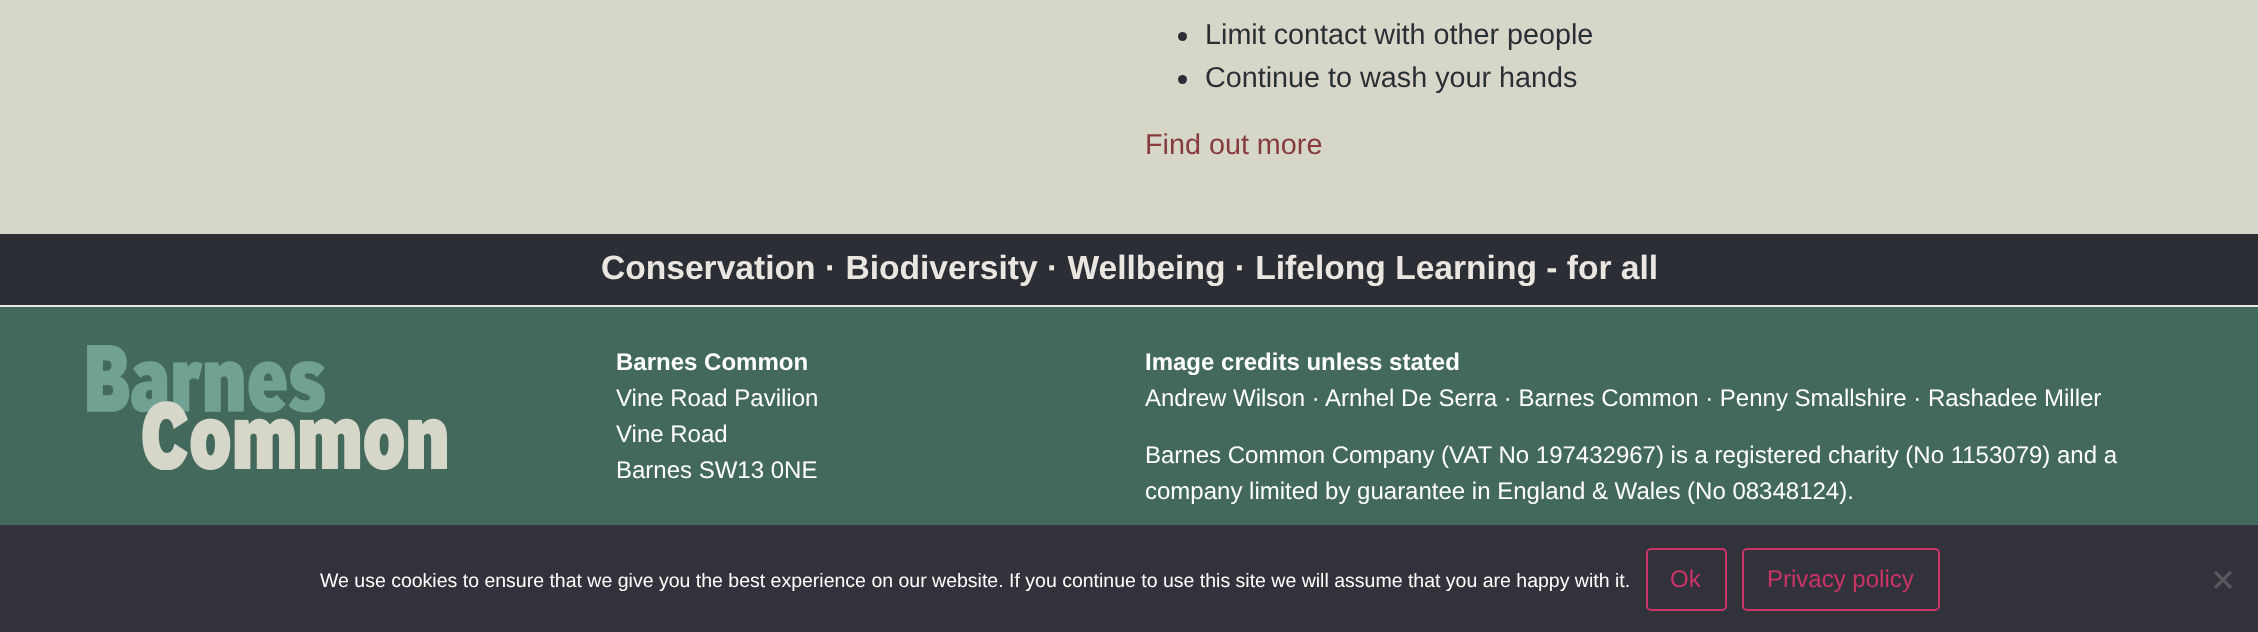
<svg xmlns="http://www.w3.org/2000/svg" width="2258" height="632">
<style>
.a{font:28.75px Liberation Sans;fill:#2c2e35}
.b{font:28.75px Liberation Sans;fill:#873b3d}
.c{font:bold 33.6px Liberation Sans;fill:#ebe7e0}
.d{font:bold 24px Liberation Sans;fill:#fff}
.e{font:24px Liberation Sans;fill:#fff}
.f{font:19.5px Liberation Sans;fill:#fff}
.g{font:24px Liberation Sans;fill:#c36}
</style>
<rect width="100%" height="100%" fill="#d6d6c9"/>
<circle fill="#2c2e35" cx="1182.5" cy="36.5" r="4.5"/>
<circle fill="#2c2e35" cx="1182.5" cy="79.5" r="4.5"/>
<path fill="#2c2e35" d="M0 234h2258v71H0z"/>
<path fill="#42695c" d="M0 307h2258v218H0z"/>
<path fill="#ebe7e0" d="M0 305h2258v2H0z"/>
<image href="1.png" x="87" y="345" width="360" height="125"/>
<path fill="#32323a" d="M0 525h2258v107H0z"/>
<rect fill="none" stroke="#c36" stroke-width="2" x="1647" y="549" width="79" height="61" rx="4"/>
<rect fill="none" stroke="#c36" stroke-width="2" x="1743" y="549" width="196" height="61" rx="4"/>
<path fill="#59595d" d="M2230 570.5l2 2.5l-16 16l-2-2.5z"/>
<path fill="#59595d" d="M2214 573l2-2.5l16 16l-2 2.5z"/>
<text class="a" x="1205" y="44">Limit contact with other people</text>
<text class="a" x="1205" y="87">Continue to wash your hands</text>
<text class="b" x="1145" y="154">Find out more</text>
<text class="c" x="601" y="279">Conservation · Biodiversity · Wellbeing · Lifelong Learning - for all</text>
<text class="d" x="616" y="370">Barnes Common</text>
<text class="e" x="616" y="406">Vine Road Pavilion</text>
<text class="e" x="616" y="442">Vine Road</text>
<text class="e" x="616" y="478">Barnes SW13 0NE</text>
<text class="d" x="1145" y="370">Image credits unless stated</text>
<text class="e" x="1145" y="406">Andrew Wilson · Arnhel De Serra · Barnes Common · Penny Smallshire · Rashadee Miller</text>
<text class="e" x="1145" y="463">Barnes Common Company (VAT No 197432967) is a registered charity (No 1153079) and a</text>
<text class="e" x="1145" y="499">company limited by guarantee in England &amp; Wales (No 08348124).</text>
<text class="f" x="320" y="587">We use cookies to ensure that we give you the best experience on our website. If you continue to use this site we will assume that you are happy with it.</text>
<text class="g" x="1670" y="587">Ok</text>
<text class="g" x="1767" y="587">Privacy policy</text>
</svg>
